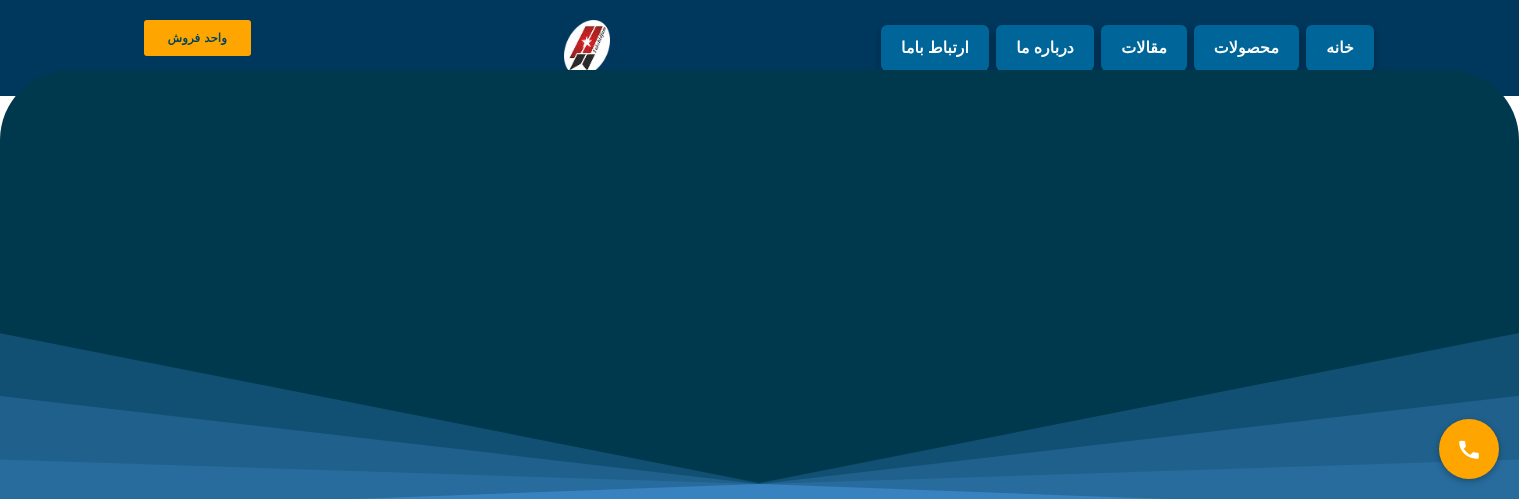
<svg xmlns="http://www.w3.org/2000/svg" width="1519" height="499">
<style>
.a{font:bold 12px DejaVu Sans;direction:rtl;fill:#004560}
.b{font:bold 16px DejaVu Sans;direction:rtl;fill:#fff}
</style>
<rect width="100%" height="100%" fill="#fff"/>
<path fill="#00385d" d="M0 0h1519v96H0z"/>
<image href="1.png" x="564" y="20" width="46" height="50"/>
<rect fill="#ffa500" x="144" y="20" width="107" height="36" rx="3"/>
<rect fill="#0000004d" filter="blur(4px)" x="1306" y="29" width="68" height="46" rx="6"/>
<rect fill="#006599" x="1306" y="25" width="68" height="46" rx="6"/>
<rect fill="#0000004d" filter="blur(4px)" x="1194" y="29" width="105" height="46" rx="6"/>
<rect fill="#006599" x="1194" y="25" width="105" height="46" rx="6"/>
<rect fill="#0000004d" filter="blur(4px)" x="1101" y="29" width="86" height="46" rx="6"/>
<rect fill="#006599" x="1101" y="25" width="86" height="46" rx="6"/>
<rect fill="#0000004d" filter="blur(4px)" x="996" y="29" width="98" height="46" rx="6"/>
<rect fill="#006599" x="996" y="25" width="98" height="46" rx="6"/>
<rect fill="#0000004d" filter="blur(4px)" x="881" y="29" width="108" height="46" rx="6"/>
<rect fill="#006599" x="881" y="25" width="108" height="46" rx="6"/>
<path fill="#00384d" d="M70 70h1379c38.5 0 70 31.5 70 70v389h-1519v-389c0-38.5 31.5-70 70-70z"/>
<path fill="#125073" d="M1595 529v-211l-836 165l-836-165v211z"/>
<path fill="#1f618c" d="M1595 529v-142l-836 97l-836-97v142z"/>
<path fill="#276c9d" d="M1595 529v-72l-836 27l-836-27v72z"/>
<path fill="#3882c0" d="M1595 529v-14l-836-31l-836 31v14z"/>
<rect fill="#0000004d" filter="blur(3px)" x="1439" y="421" width="60" height="60" rx="30"/>
<circle fill="#ffa500" cx="1469" cy="449" r="30"/>
<image href="2.png" x="1459" y="440" width="20" height="19"/>
<text class="a" x="227" y="42">واحد فروش</text>
<text class="b" x="1354" y="53">خانه</text>
<text class="b" x="1279" y="53">محصولات</text>
<text class="b" x="1167" y="53">مقالات</text>
<text class="b" x="1074" y="53" word-spacing="-1">درباره ما</text>
<text class="b" x="969" y="53" word-spacing="-1">ارتباط باما</text>
</svg>
